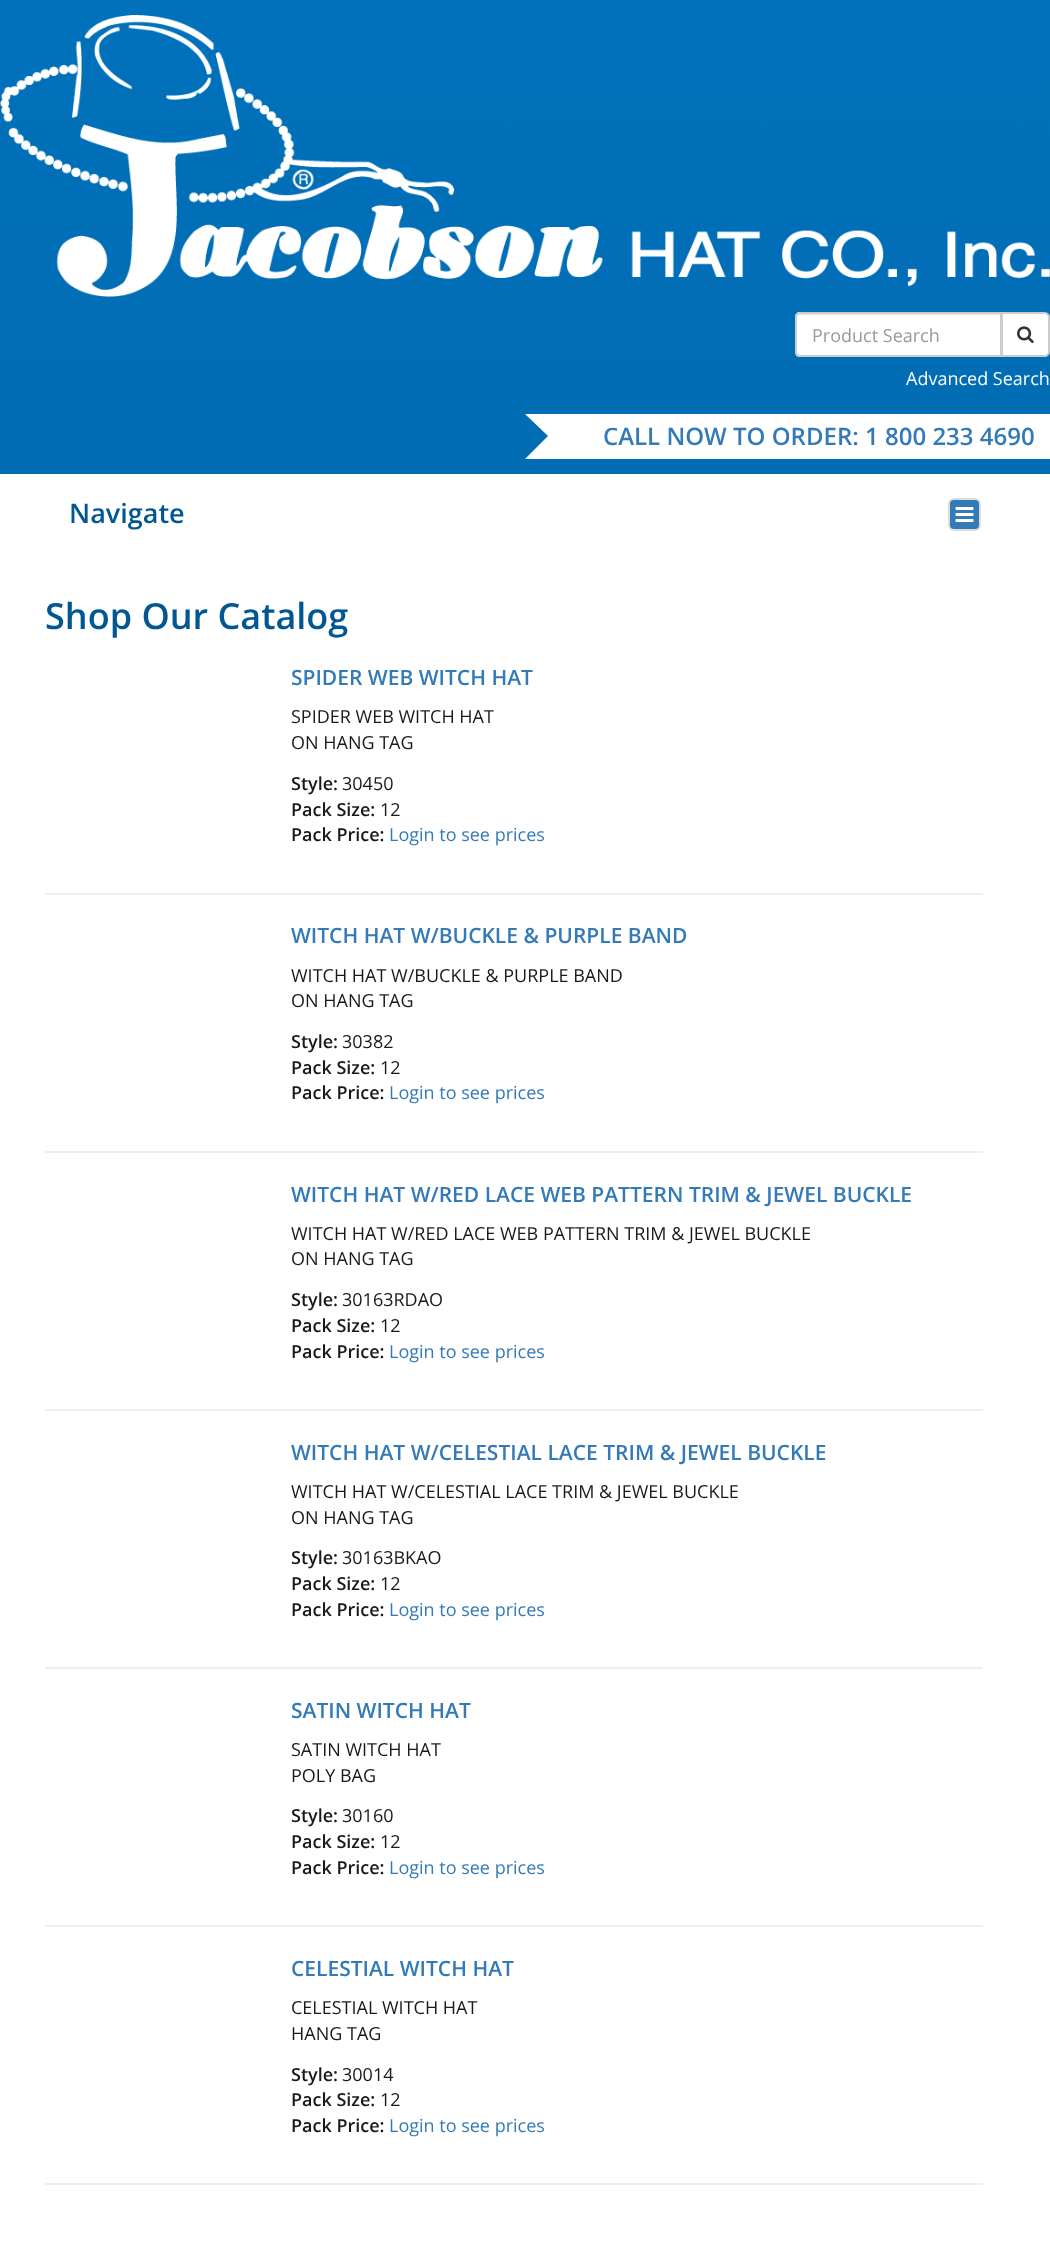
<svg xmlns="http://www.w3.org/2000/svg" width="1050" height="2250">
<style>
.a{font:18px Open Sans;fill:#999}
.b{font:18px Open Sans;fill:#fff}
.c{font:600 24px Open Sans;fill:#337ab7}
.d{font:600 27px Open Sans;fill:#005792}
.e{font:600 36px Open Sans;fill:#005792}
.f{font:600 21px Open Sans;fill:#337ab7}
.g{font:18px Open Sans;fill:#1c1819}
.h{font:600 18px Open Sans;fill:#1c1819}
.i{font:18px Open Sans;fill:#337ab7}
</style>
<defs>
<linearGradient id="g1" gradientUnits="userSpaceOnUse" x1="525" y1="0" x2="525" y2="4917"><stop offset="0" stop-color="#0171bb"/><stop offset="0.5" stop-color="#005792"/><stop offset="1" stop-color="#00345c"/></linearGradient>
</defs>
<rect width="100%" height="100%" fill="#fff"/>
<path fill="url(#g1)" d="M0 0h1050v474H0z"/>
<image href="1.png" x="0" y="15" width="1050" height="282"/>
<path fill="#fff" d="M800 312h202v45h-202c-3 0-5-2-5-5v-35c0-3 2-5 5-5z"/>
<path fill="#ececec" d="M800 315h200v41h1v-42h-201c-1 0-2 1-3 2z"/>
<path fill="none" stroke="#ccc" stroke-width="2" d="M800 313h201v43h-201c-2 0-4-2-4-4v-35c0-2 2-4 4-4z"/>
<path fill="#fff" stroke="#ccc" stroke-width="2" d="M1002 313h43c2 0 4 2 4 4v35c0 2-2 4-4 4h-43z"/>
<image href="2.png" x="1017" y="326" width="17" height="18"/>
<path fill="#fff" d="M525 414h525v45H525z"/>
<path fill="#006db5" d="M525 459v-45l23 22z"/>
<rect fill="#337ab7" stroke="#ddd" stroke-width="2" x="949" y="499" width="31" height="31" rx="5"/>
<image href="3.png" x="955" y="507" width="19" height="15"/>
<path fill="#eee" d="M45 893h938v2H45z"/>
<path fill="#eee" d="M45 1151h938v2H45z"/>
<path fill="#eee" d="M45 1409h938v2H45z"/>
<path fill="#eee" d="M45 1667h938v2H45z"/>
<path fill="#eee" d="M45 1925h938v2H45z"/>
<path fill="#eee" d="M45 2183h938v2H45z"/>
<text class="a" x="812" y="342">Product Search</text>
<text class="b" x="906" y="385">Advanced Search</text>
<text class="c" x="603" y="445">CALL NOW TO ORDER: 1 800 233 4690</text>
<text class="d" x="69" y="523">Navigate</text>
<text class="e" x="45" y="629">Shop Our Catalog</text>
<text class="f" x="291" y="685">SPIDER WEB WITCH HAT</text>
<text class="g" x="291" y="723">SPIDER WEB WITCH HAT</text>
<text class="g" x="291" y="749">ON HANG TAG</text>
<text class="h" x="291" y="790">Style:</text>
<text class="g" x="342" y="790">30450</text>
<text class="h" x="291" y="816">Pack Size:</text>
<text class="g" x="380" y="816">12</text>
<text class="h" x="291" y="841">Pack Price:</text>
<text class="i" x="389" y="841">Login to see prices</text>
<text class="f" x="291" y="943">WITCH HAT W/BUCKLE &amp; PURPLE BAND</text>
<text class="g" x="291" y="982">WITCH HAT W/BUCKLE &amp; PURPLE BAND</text>
<text class="g" x="291" y="1007">ON HANG TAG</text>
<text class="h" x="291" y="1048">Style:</text>
<text class="g" x="342" y="1048">30382</text>
<text class="h" x="291" y="1074">Pack Size:</text>
<text class="g" x="380" y="1074">12</text>
<text class="h" x="291" y="1099">Pack Price:</text>
<text class="i" x="389" y="1099">Login to see prices</text>
<text class="f" x="291" y="1202">WITCH HAT W/RED LACE WEB PATTERN TRIM &amp; JEWEL BUCKLE</text>
<text class="g" x="291" y="1240">WITCH HAT W/RED LACE WEB PATTERN TRIM &amp; JEWEL BUCKLE</text>
<text class="g" x="291" y="1265">ON HANG TAG</text>
<text class="h" x="291" y="1306">Style:</text>
<text class="g" x="342" y="1306">30163RDAO</text>
<text class="h" x="291" y="1332">Pack Size:</text>
<text class="g" x="380" y="1332">12</text>
<text class="h" x="291" y="1358">Pack Price:</text>
<text class="i" x="389" y="1358">Login to see prices</text>
<text class="f" x="291" y="1460">WITCH HAT W/CELESTIAL LACE TRIM &amp; JEWEL BUCKLE</text>
<text class="g" x="291" y="1498">WITCH HAT W/CELESTIAL LACE TRIM &amp; JEWEL BUCKLE</text>
<text class="g" x="291" y="1524">ON HANG TAG</text>
<text class="h" x="291" y="1564">Style:</text>
<text class="g" x="342" y="1564">30163BKAO</text>
<text class="h" x="291" y="1590">Pack Size:</text>
<text class="g" x="380" y="1590">12</text>
<text class="h" x="291" y="1616">Pack Price:</text>
<text class="i" x="389" y="1616">Login to see prices</text>
<text class="f" x="291" y="1718">SATIN WITCH HAT</text>
<text class="g" x="291" y="1756">SATIN WITCH HAT</text>
<text class="g" x="291" y="1782">POLY BAG</text>
<text class="h" x="291" y="1822">Style:</text>
<text class="g" x="342" y="1822">30160</text>
<text class="h" x="291" y="1848">Pack Size:</text>
<text class="g" x="380" y="1848">12</text>
<text class="h" x="291" y="1874">Pack Price:</text>
<text class="i" x="389" y="1874">Login to see prices</text>
<text class="f" x="291" y="1976">CELESTIAL WITCH HAT</text>
<text class="g" x="291" y="2014">CELESTIAL WITCH HAT</text>
<text class="g" x="291" y="2040">HANG TAG</text>
<text class="h" x="291" y="2081">Style:</text>
<text class="g" x="342" y="2081">30014</text>
<text class="h" x="291" y="2106">Pack Size:</text>
<text class="g" x="380" y="2106">12</text>
<text class="h" x="291" y="2132">Pack Price:</text>
<text class="i" x="389" y="2132">Login to see prices</text>
</svg>
